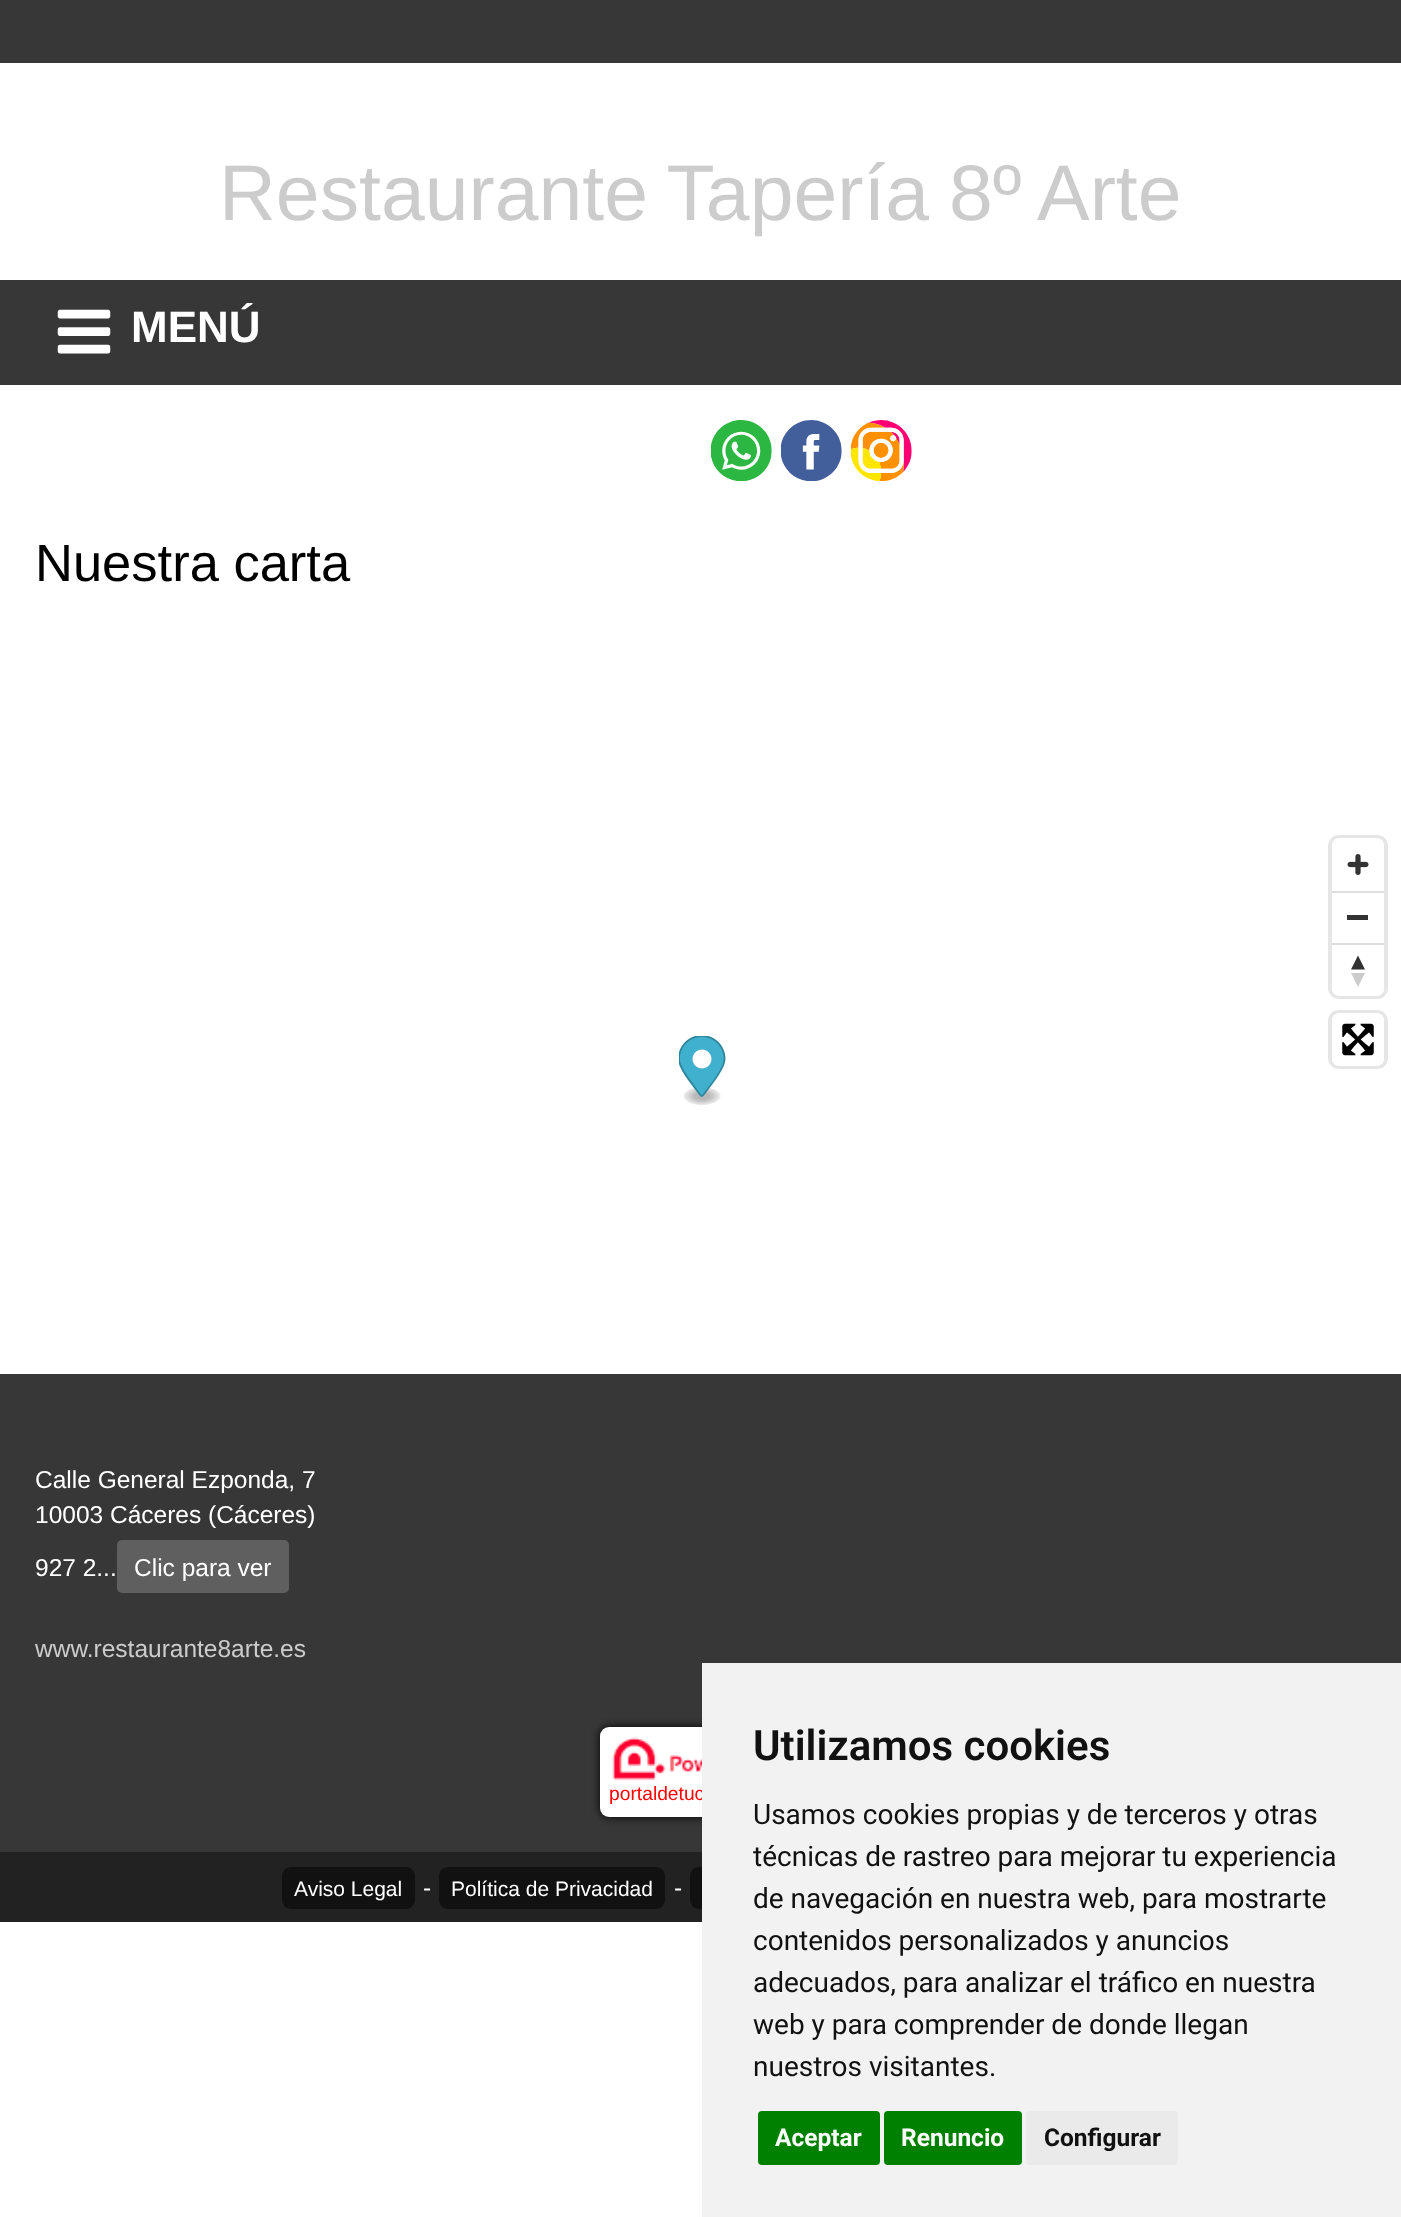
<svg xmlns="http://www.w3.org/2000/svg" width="1401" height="2217">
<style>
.a{font:78.75px Liberation Sans;fill:#ccc}
.b{font:bold 44px Liberation Sans;fill:#fff}
.c{font:52.5px Liberation Sans;fill:#000}
.d{font:24.5px Liberation Sans;fill:#fff}
.e{font:24.5px Liberation Sans;fill:#ccc}
.f{font:19.25px Liberation Sans;fill:#f00}
.g{font:21px Liberation Sans;fill:#fff}
.h{font:600 42px Roboto;fill:#111}
.i{font:28px Roboto;fill:#111}
.j{font:bold 24.5px Roboto;fill:#fff}
.k{font:bold 24.5px Roboto;fill:#111}
</style>
<rect width="100%" height="100%" fill="#fff"/>
<path fill="#373737" d="M0 0h1401v63H0z"/>
<path fill="#373737" d="M0 280h1401v105H0z"/>
<image href="1.png" x="57" y="309" width="54" height="45"/>
<image href="2.png" x="711" y="420" width="61" height="61"/>
<image href="3.png" x="781" y="420" width="61" height="61"/>
<image href="4.png" x="851" y="420" width="61" height="61"/>
<image href="5.png" x="679" y="1036" width="47" height="69"/>
<rect fill="none" stroke="#e6e6e6" stroke-width="4" x="1330" y="837" width="56" height="160" rx="9"/>
<rect fill="#fff" x="1332" y="838" width="52" height="158" rx="7"/>
<image href="6.png" x="1347" y="854" width="22" height="21"/>
<path fill="#333" d="M1347 915h21v5H1347z"/>
<path fill="#ddd" d="M1332 891h52v2H1332z"/>
<path fill="#ddd" d="M1332 943h52v2H1332z"/>
<path fill="#333" d="M1351 969.5l7-14l7 14z"/>
<path fill="#ccc" d="M1351 973l7 14l7-14z"/>
<rect fill="none" stroke="#e6e6e6" stroke-width="4" x="1330" y="1012" width="56" height="55" rx="9"/>
<rect fill="#fff" x="1332" y="1013" width="52" height="53" rx="7"/>
<image href="7.png" x="1342" y="1023" width="32" height="33"/>
<path fill="#373737" d="M0 1374h1401v478H0z"/>
<rect fill="#5f5f5f" x="117" y="1540" width="172" height="53" rx="5"/>
<rect fill="#000" filter="blur(4.5px)" x="600" y="1727" width="202" height="90" rx="9"/>
<rect fill="#fff" x="600" y="1727" width="202" height="90" rx="9"/>
<image href="8.png" x="612" y="1737" width="90" height="44"/>
<path fill="#222" d="M0 1852h702v70H0z"/>
<rect fill="#111" x="282" y="1867" width="133" height="42" rx="9"/>
<rect fill="#111" x="439" y="1867" width="226" height="42" rx="9"/>
<rect fill="#111" x="690" y="1867" width="203" height="42" rx="9"/>
<text class="a" x="219" y="220" word-spacing="-2">Restaurante Tapería 8º Arte</text>
<text class="b" x="131" y="342">MENÚ</text>
<text class="c" x="35" y="581">Nuestra carta</text>
<text class="d" x="35" y="1488">Calle General Ezponda, 7</text>
<text class="d" x="35" y="1523">10003 Cáceres (Cáceres)</text>
<text class="d" x="35" y="1576">927 2...</text>
<text class="d" x="134" y="1576">Clic para ver</text>
<text class="e" x="35" y="1657">www.restaurante8arte.es</text>
<text class="f" x="609" y="1800">portaldetuc</text>
<text class="g" x="294" y="1896">Aviso Legal</text>
<text class="d" x="423" y="1896">-</text>
<text class="g" x="451" y="1896">Política de Privacidad</text>
<text class="d" x="674" y="1896">-</text>
<path fill="#f2f2f2" d="M702 1663h699v554H702z"/>
<text class="h" x="753" y="1760">Utilizamos cookies</text>
<text class="i" x="753" y="1824">Usamos cookies propias y de terceros y otras</text>
<text class="i" x="753" y="1866">técnicas de rastreo para mejorar tu experiencia</text>
<text class="i" x="753" y="1908">de navegación en nuestra web, para mostrarte</text>
<text class="i" x="753" y="1950">contenidos personalizados y anuncios</text>
<text class="i" x="753" y="1992">adecuados, para analizar el tráfico en nuestra</text>
<text class="i" x="753" y="2034">web y para comprender de donde llegan</text>
<text class="i" x="753" y="2076">nuestros visitantes.</text>
<rect fill="#008000" x="758" y="2111" width="122" height="54" rx="4"/>
<text class="j" x="775" y="2146">Aceptar</text>
<rect fill="#008000" x="884" y="2111" width="138" height="54" rx="4"/>
<text class="j" x="901" y="2146">Renuncio</text>
<rect fill="#eaeaea" x="1026" y="2111" width="152" height="54" rx="4"/>
<text class="k" x="1044" y="2146">Configurar</text>
</svg>
